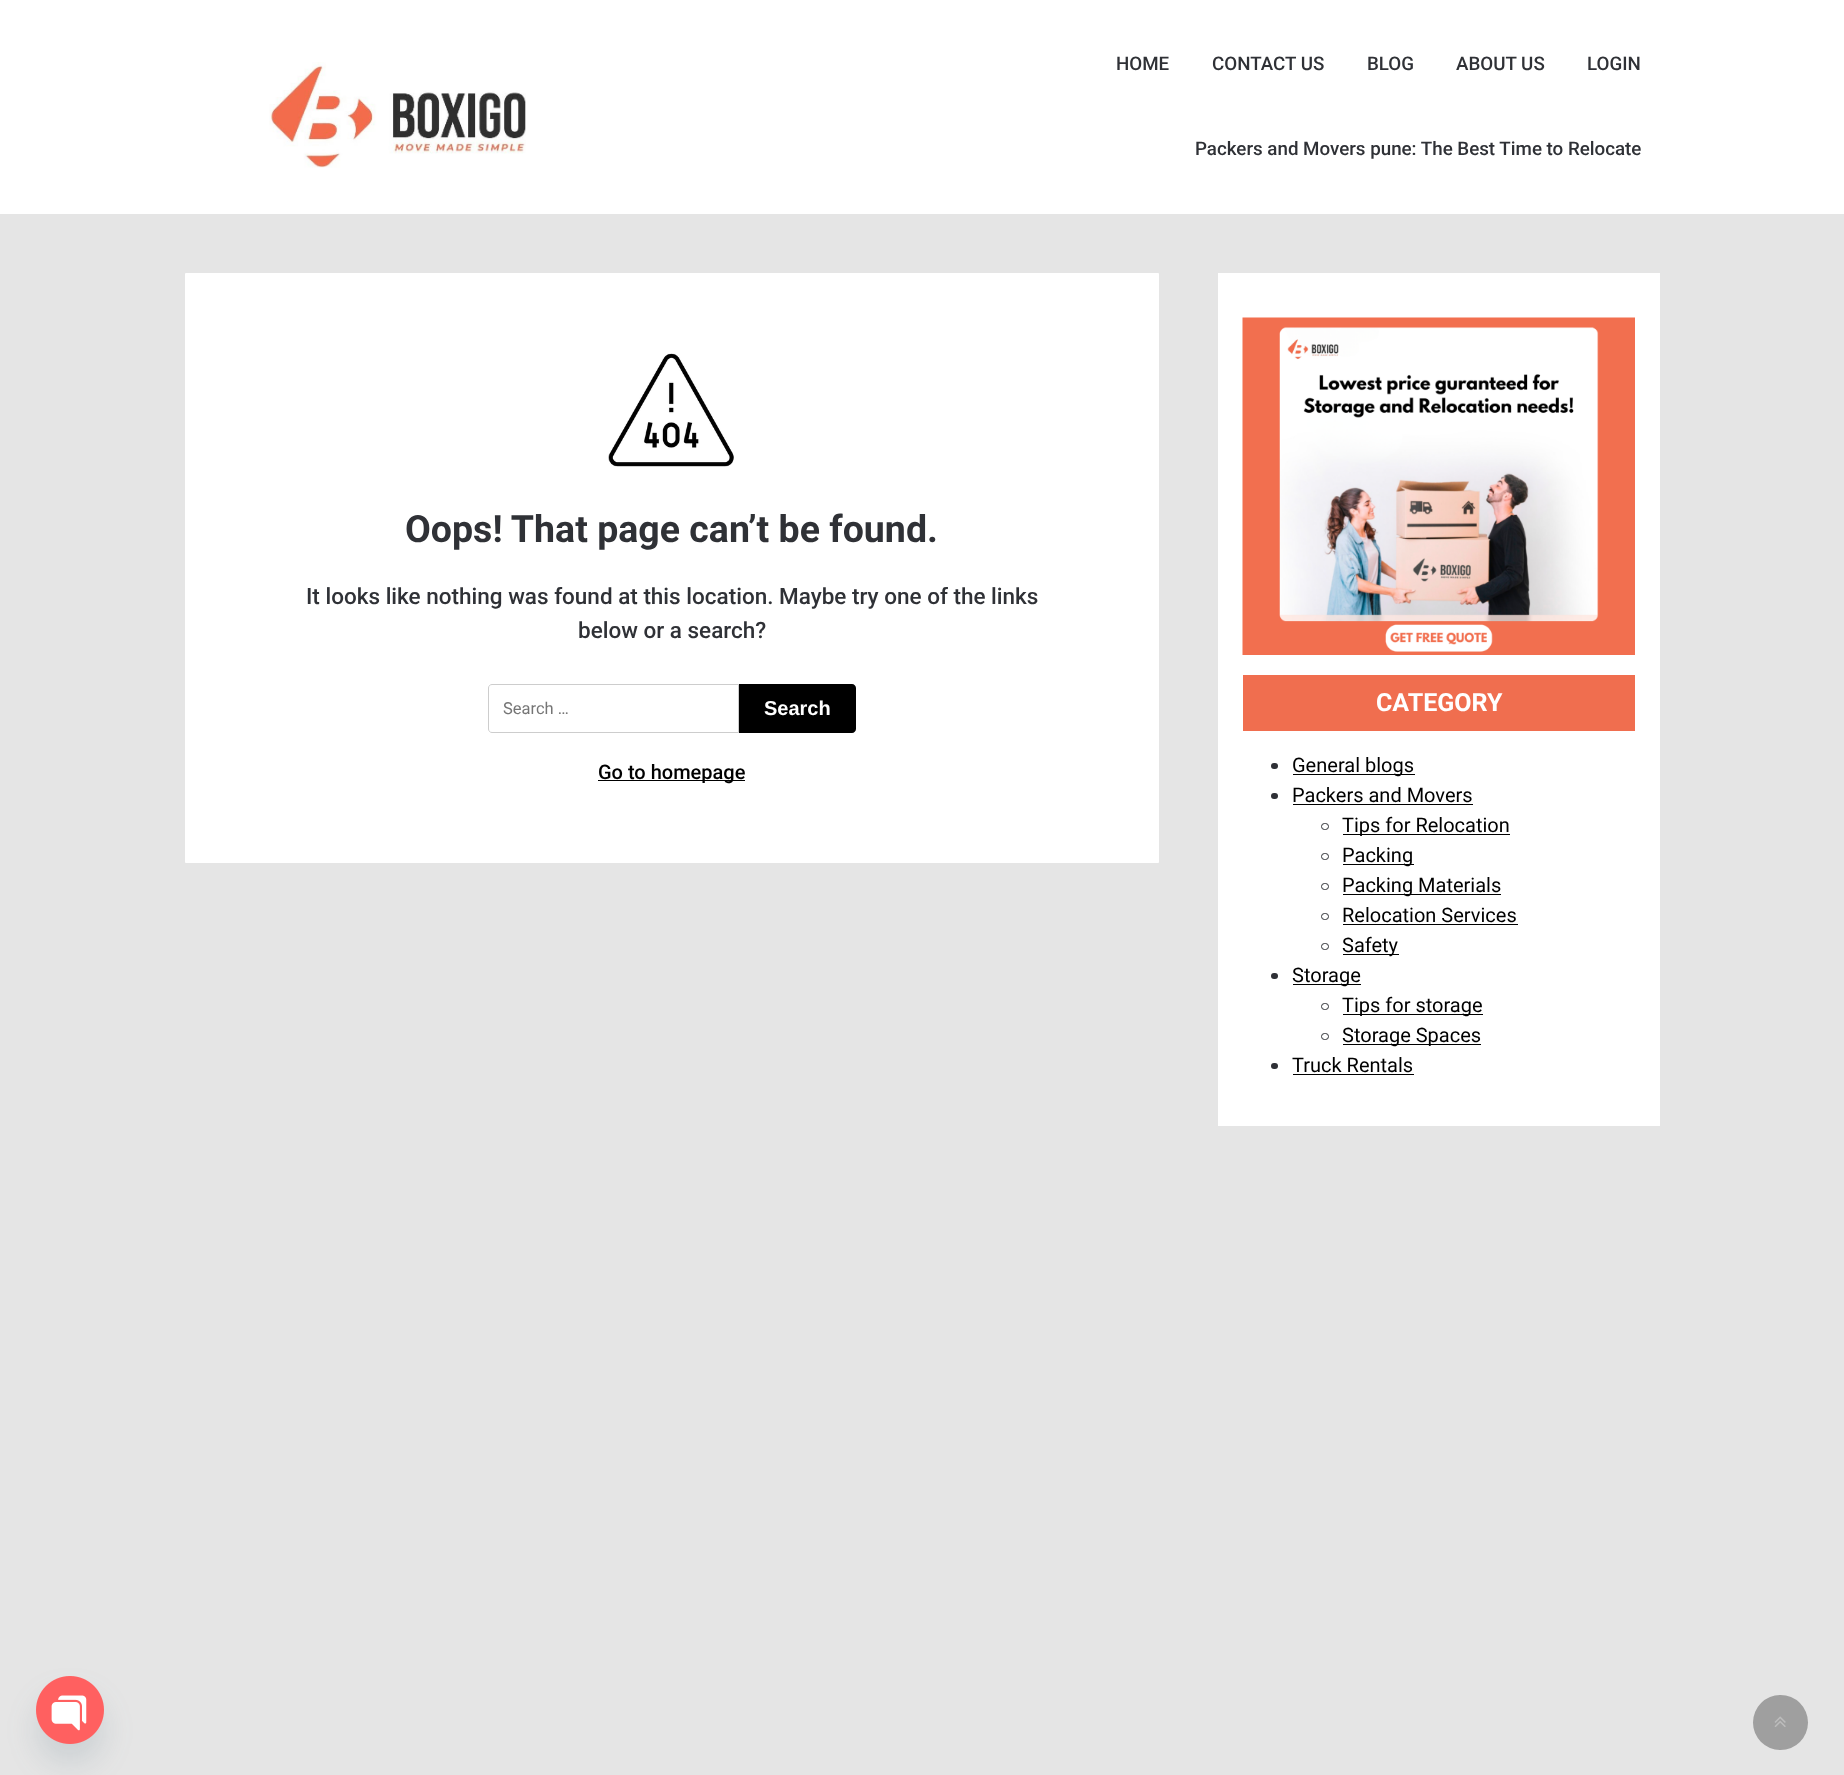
<svg xmlns="http://www.w3.org/2000/svg" width="1844" height="1775">
<style>
.a{font:500 18.75px Roboto;fill:#2f3136}
.b{font:bold 37.5px Roboto;fill:#2f3136}
.c{font:500 22.5px Roboto;fill:#2f3136}
.d{font:16.5px Roboto;fill:#757575}
.e{font:bold 20px Liberation Sans;fill:#fff}
.f{font:500 20px Roboto;fill:#000}
.g{font:bold 25px Roboto;fill:#fff}
.h{font:20px Roboto;fill:#000}
</style>
<rect width="100%" height="100%" fill="#e5e5e5"/>
<path fill="#fff" d="M0 0h1844v214H0z"/>
<image href="1.png" x="269" y="62" width="257" height="106"/>
<rect fill="#fff" x="185" y="273" width="974" height="590" rx="1"/>
<image href="2.png" x="608" y="353" width="126" height="114"/>
<path fill="none" stroke="#cdcdcd" d="M492 684.5h246.5v48h-246.5c-2 0-3.5-1.5-3.5-3.5v-41c0-2 1.5-3.5 3.5-3.5z"/>
<path fill="#000" d="M739 684h113c2 0 4 2 4 4v41c0 2-2 4-4 4h-113z"/>
<path fill="#000" d="M598 780h147v1H598z"/>
<path fill="#fff" d="M1218 273h442v853H1218z"/>
<image href="3.png" x="1242" y="317" width="393" height="338"/>
<path fill="#f06e4f" d="M1243 675h392v56H1243z"/>
<rect fill="#2f3136" x="1271" y="763" width="7" height="6" rx="3"/>
<path fill="#000" d="M1293 774h122v1H1293z"/>
<rect fill="#2f3136" x="1271" y="793" width="7" height="6" rx="3"/>
<path fill="#000" d="M1293 804h180v1H1293z"/>
<rect fill="none" stroke="#2f3136" x="1321.5" y="823.5" width="7" height="6" rx="3"/>
<path fill="#000" d="M1343 834h167v1H1343z"/>
<rect fill="none" stroke="#2f3136" x="1321.5" y="853.5" width="7" height="6" rx="3"/>
<path fill="#000" d="M1343 864h71v1H1343z"/>
<rect fill="none" stroke="#2f3136" x="1321.5" y="883.5" width="7" height="6" rx="3"/>
<path fill="#000" d="M1343 894h158v1H1343z"/>
<rect fill="none" stroke="#2f3136" x="1321.5" y="913.5" width="7" height="6" rx="3"/>
<path fill="#000" d="M1343 924h175v1H1343z"/>
<rect fill="none" stroke="#2f3136" x="1321.5" y="943.5" width="7" height="6" rx="3"/>
<path fill="#000" d="M1343 954h56v1H1343z"/>
<rect fill="#2f3136" x="1271" y="973" width="7" height="6" rx="3"/>
<path fill="#000" d="M1293 984h68v1H1293z"/>
<rect fill="none" stroke="#2f3136" x="1321.5" y="1003.5" width="7" height="6" rx="3"/>
<path fill="#000" d="M1343 1014h140v1H1343z"/>
<rect fill="none" stroke="#2f3136" x="1321.5" y="1033.5" width="7" height="6" rx="3"/>
<path fill="#000" d="M1343 1044h138v1H1343z"/>
<rect fill="#2f3136" x="1271" y="1063" width="7" height="6" rx="3"/>
<path fill="#000" d="M1293 1074h121v1H1293z"/>
<rect fill="#49687e29" filter="blur(15px)" x="36" y="1696" width="68" height="68" rx="34"/>
<image href="4.png" x="36" y="1676" width="68" height="68"/>
<circle fill="#9f9f9f" cx="1780.5" cy="1722.5" r="27.5"/>
<image href="5.png" x="1774" y="1716" width="12" height="11"/>
<text class="a" x="1116" y="70">HOME</text>
<text class="a" x="1212" y="70">CONTACT US</text>
<text class="a" x="1367" y="70">BLOG</text>
<text class="a" x="1456" y="70">ABOUT US</text>
<text class="a" x="1587" y="70">LOGIN</text>
<text class="a" x="1195" y="155">Packers and Movers pune: The Best Time to Relocate</text>
<text class="b" x="405" y="542">Oops! That page can’t be found.</text>
<text class="c" x="306" y="604">It looks like nothing was found at this location. Maybe try one of the links</text>
<text class="c" x="578" y="638">below or a search?</text>
<text class="d" x="503" y="714">Search …</text>
<text class="e" x="764" y="715">Search</text>
<text class="f" x="598" y="779">Go to homepage</text>
<text class="g" x="1376" y="711">CATEGORY</text>
<text class="h" x="1292" y="772">General blogs</text>
<text class="h" x="1292" y="802">Packers and Movers</text>
<text class="h" x="1342" y="832">Tips for Relocation</text>
<text class="h" x="1342" y="862">Packing</text>
<text class="h" x="1342" y="892">Packing Materials</text>
<text class="h" x="1342" y="922">Relocation Services</text>
<text class="h" x="1342" y="952">Safety</text>
<text class="h" x="1292" y="982">Storage</text>
<text class="h" x="1342" y="1012">Tips for storage</text>
<text class="h" x="1342" y="1042">Storage Spaces</text>
<text class="h" x="1292" y="1072">Truck Rentals</text>
</svg>
